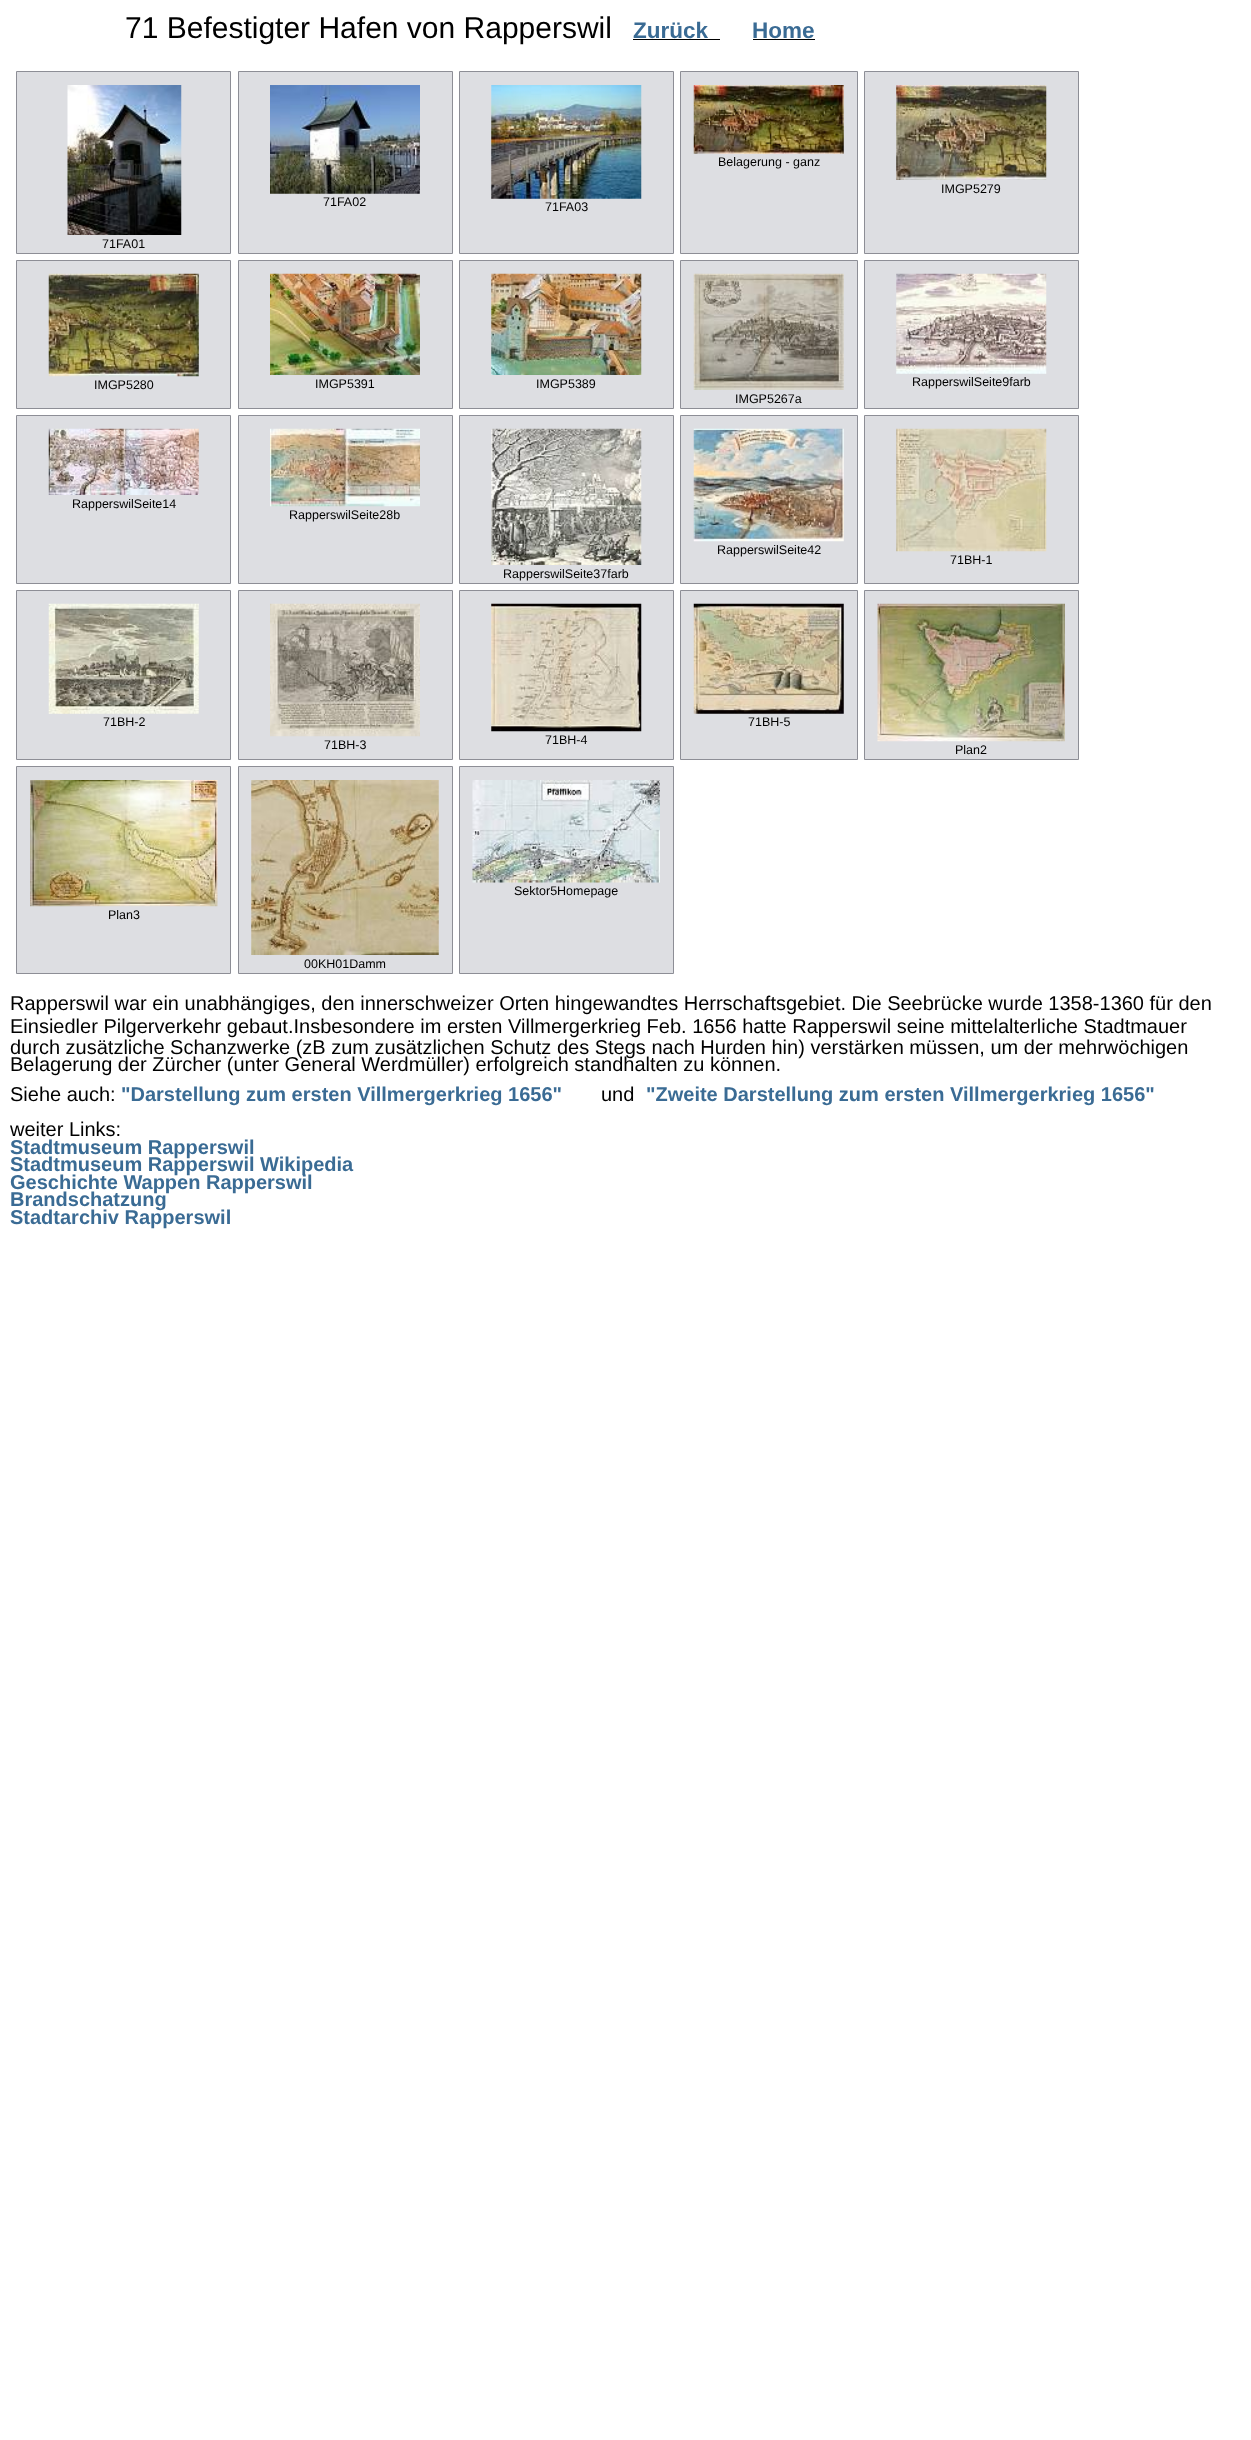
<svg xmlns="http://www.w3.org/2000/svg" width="1251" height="2440">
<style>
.a{font:30px Liberation Sans;fill:#000}
.b{font:bold 22.5px Liberation Sans;fill:#3a6b94}
.c{font:12.5px Liberation Sans;fill:#000}
.d{font:20px Liberation Sans;fill:#000}
.e{font:bold 20px Liberation Sans;fill:#3a6b94}
</style>
<rect width="100%" height="100%" fill="#fff"/>
<path fill="#000" d="M633 39h87v1H633z"/>
<path fill="#000" d="M753 39h62v1H753z"/>
<path fill="#dddee2" stroke="#8d8e96" d="M680.5 71.5h177v182H680.5z"/>
<image href="1.png" x="693" y="85" width="151" height="69"/>
<path fill="#dddee2" stroke="#8d8e96" d="M864.5 71.5h214v182H864.5z"/>
<image href="2.png" x="896" y="85" width="151" height="95"/>
<path fill="#dddee2" stroke="#8d8e96" d="M238.5 71.5h214v182H238.5z"/>
<image href="3.png" x="270" y="85" width="150" height="109"/>
<path fill="#dddee2" stroke="#8d8e96" d="M459.5 71.5h214v182H459.5z"/>
<image href="4.png" x="491" y="85" width="151" height="114"/>
<path fill="#dddee2" stroke="#8d8e96" d="M16.5 71.5h214v182H16.5z"/>
<image href="5.png" x="67" y="85" width="115" height="150"/>
<path fill="#dddee2" stroke="#8d8e96" d="M16.5 260.5h214v148H16.5z"/>
<image href="6.png" x="48" y="273" width="151" height="104"/>
<path fill="#dddee2" stroke="#8d8e96" d="M238.5 260.5h214v148H238.5z"/>
<image href="7.png" x="270" y="273" width="150" height="102"/>
<path fill="#dddee2" stroke="#8d8e96" d="M459.5 260.5h214v148H459.5z"/>
<image href="8.png" x="491" y="273" width="151" height="102"/>
<path fill="#dddee2" stroke="#8d8e96" d="M864.5 260.5h214v148H864.5z"/>
<image href="9.png" x="896" y="273" width="151" height="101"/>
<path fill="#dddee2" stroke="#8d8e96" d="M680.5 260.5h177v148H680.5z"/>
<image href="10.png" x="693" y="273" width="151" height="117"/>
<path fill="#dddee2" stroke="#8d8e96" d="M16.5 415.5h214v168H16.5z"/>
<image href="11.png" x="48" y="428" width="151" height="67"/>
<path fill="#dddee2" stroke="#8d8e96" d="M238.5 415.5h214v168H238.5z"/>
<image href="12.png" x="270" y="428" width="150" height="79"/>
<path fill="#dddee2" stroke="#8d8e96" d="M680.5 415.5h177v168H680.5z"/>
<image href="13.png" x="693" y="428" width="151" height="114"/>
<path fill="#dddee2" stroke="#8d8e96" d="M864.5 415.5h214v168H864.5z"/>
<image href="14.png" x="896" y="428" width="151" height="124"/>
<path fill="#dddee2" stroke="#8d8e96" d="M459.5 415.5h214v168H459.5z"/>
<image href="15.png" x="491" y="428" width="151" height="137"/>
<path fill="#dddee2" stroke="#8d8e96" d="M16.5 590.5h214v169H16.5z"/>
<image href="16.png" x="48" y="603" width="151" height="111"/>
<path fill="#dddee2" stroke="#8d8e96" d="M680.5 590.5h177v169H680.5z"/>
<image href="17.png" x="693" y="603" width="151" height="111"/>
<path fill="#dddee2" stroke="#8d8e96" d="M238.5 590.5h214v169H238.5z"/>
<image href="18.png" x="270" y="603" width="150" height="134"/>
<path fill="#dddee2" stroke="#8d8e96" d="M459.5 590.5h214v169H459.5z"/>
<image href="19.png" x="491" y="603" width="151" height="129"/>
<path fill="#dddee2" stroke="#8d8e96" d="M864.5 590.5h214v169H864.5z"/>
<image href="20.png" x="877" y="603" width="188" height="139"/>
<path fill="#dddee2" stroke="#8d8e96" d="M459.5 766.5h214v207H459.5z"/>
<image href="21.png" x="472" y="780" width="188" height="103"/>
<path fill="#dddee2" stroke="#8d8e96" d="M16.5 766.5h214v207H16.5z"/>
<image href="22.png" x="30" y="780" width="188" height="127"/>
<path fill="#dddee2" stroke="#8d8e96" d="M238.5 766.5h214v207H238.5z"/>
<image href="23.png" x="251" y="780" width="188" height="175"/>
<text class="a" x="125" y="38">71 Befestigter Hafen von Rapperswil</text>
<text class="b" x="633" y="38">Zurück</text>
<text class="b" x="752" y="38">Home</text>
<text class="c" x="718" y="166">Belagerung - ganz</text>
<text class="c" x="941" y="193">IMGP5279</text>
<text class="c" x="323" y="206">71FA02</text>
<text class="c" x="545" y="211">71FA03</text>
<text class="c" x="102" y="248">71FA01</text>
<text class="c" x="94" y="389">IMGP5280</text>
<text class="c" x="315" y="388">IMGP5391</text>
<text class="c" x="536" y="388">IMGP5389</text>
<text class="c" x="912" y="386">RapperswilSeite9farb</text>
<text class="c" x="735" y="403">IMGP5267a</text>
<text class="c" x="72" y="508">RapperswilSeite14</text>
<text class="c" x="289" y="519">RapperswilSeite28b</text>
<text class="c" x="717" y="554">RapperswilSeite42</text>
<text class="c" x="950" y="564">71BH-1</text>
<text class="c" x="503" y="578">RapperswilSeite37farb</text>
<text class="c" x="103" y="726">71BH-2</text>
<text class="c" x="748" y="726">71BH-5</text>
<text class="c" x="324" y="749">71BH-3</text>
<text class="c" x="545" y="744">71BH-4</text>
<text class="c" x="955" y="754">Plan2</text>
<text class="c" x="514" y="895">Sektor5Homepage</text>
<text class="c" x="108" y="919">Plan3</text>
<text class="c" x="304" y="968">00KH01Damm</text>
<text class="d" x="10" y="1010">Rapperswil war ein unabhängiges, den innerschweizer Orten hingewandtes Herrschaftsgebiet. Die Seebrücke wurde 1358-1360 für den</text>
<text class="d" x="10" y="1033">Einsiedler Pilgerverkehr gebaut.Insbesondere im ersten Villmergerkrieg Feb. 1656 hatte Rapperswil seine mittelalterliche Stadtmauer</text>
<text class="d" x="10" y="1054">durch zusätzliche Schanzwerke (zB zum zusätzlichen Schutz des Stegs nach Hurden hin) verstärken müssen, um der mehrwöchigen</text>
<text class="d" x="10" y="1071">Belagerung der Zürcher (unter General Werdmüller) erfolgreich standhalten zu können.</text>
<text class="d" x="10" y="1101">Siehe auch:</text>
<text class="e" x="121" y="1101">"Darstellung zum ersten Villmergerkrieg 1656"</text>
<text class="d" x="601" y="1101">und</text>
<text class="e" x="646" y="1101">"Zweite Darstellung zum ersten Villmergerkrieg 1656"</text>
<text class="d" x="10" y="1136">weiter Links:</text>
<text class="e" x="10" y="1154">Stadtmuseum Rapperswil</text>
<text class="e" x="10" y="1171">Stadtmuseum Rapperswil Wikipedia</text>
<text class="e" x="10" y="1189">Geschichte Wappen Rapperswil</text>
<text class="e" x="10" y="1206">Brandschatzung</text>
<text class="e" x="10" y="1224">Stadtarchiv Rapperswil</text>
</svg>
